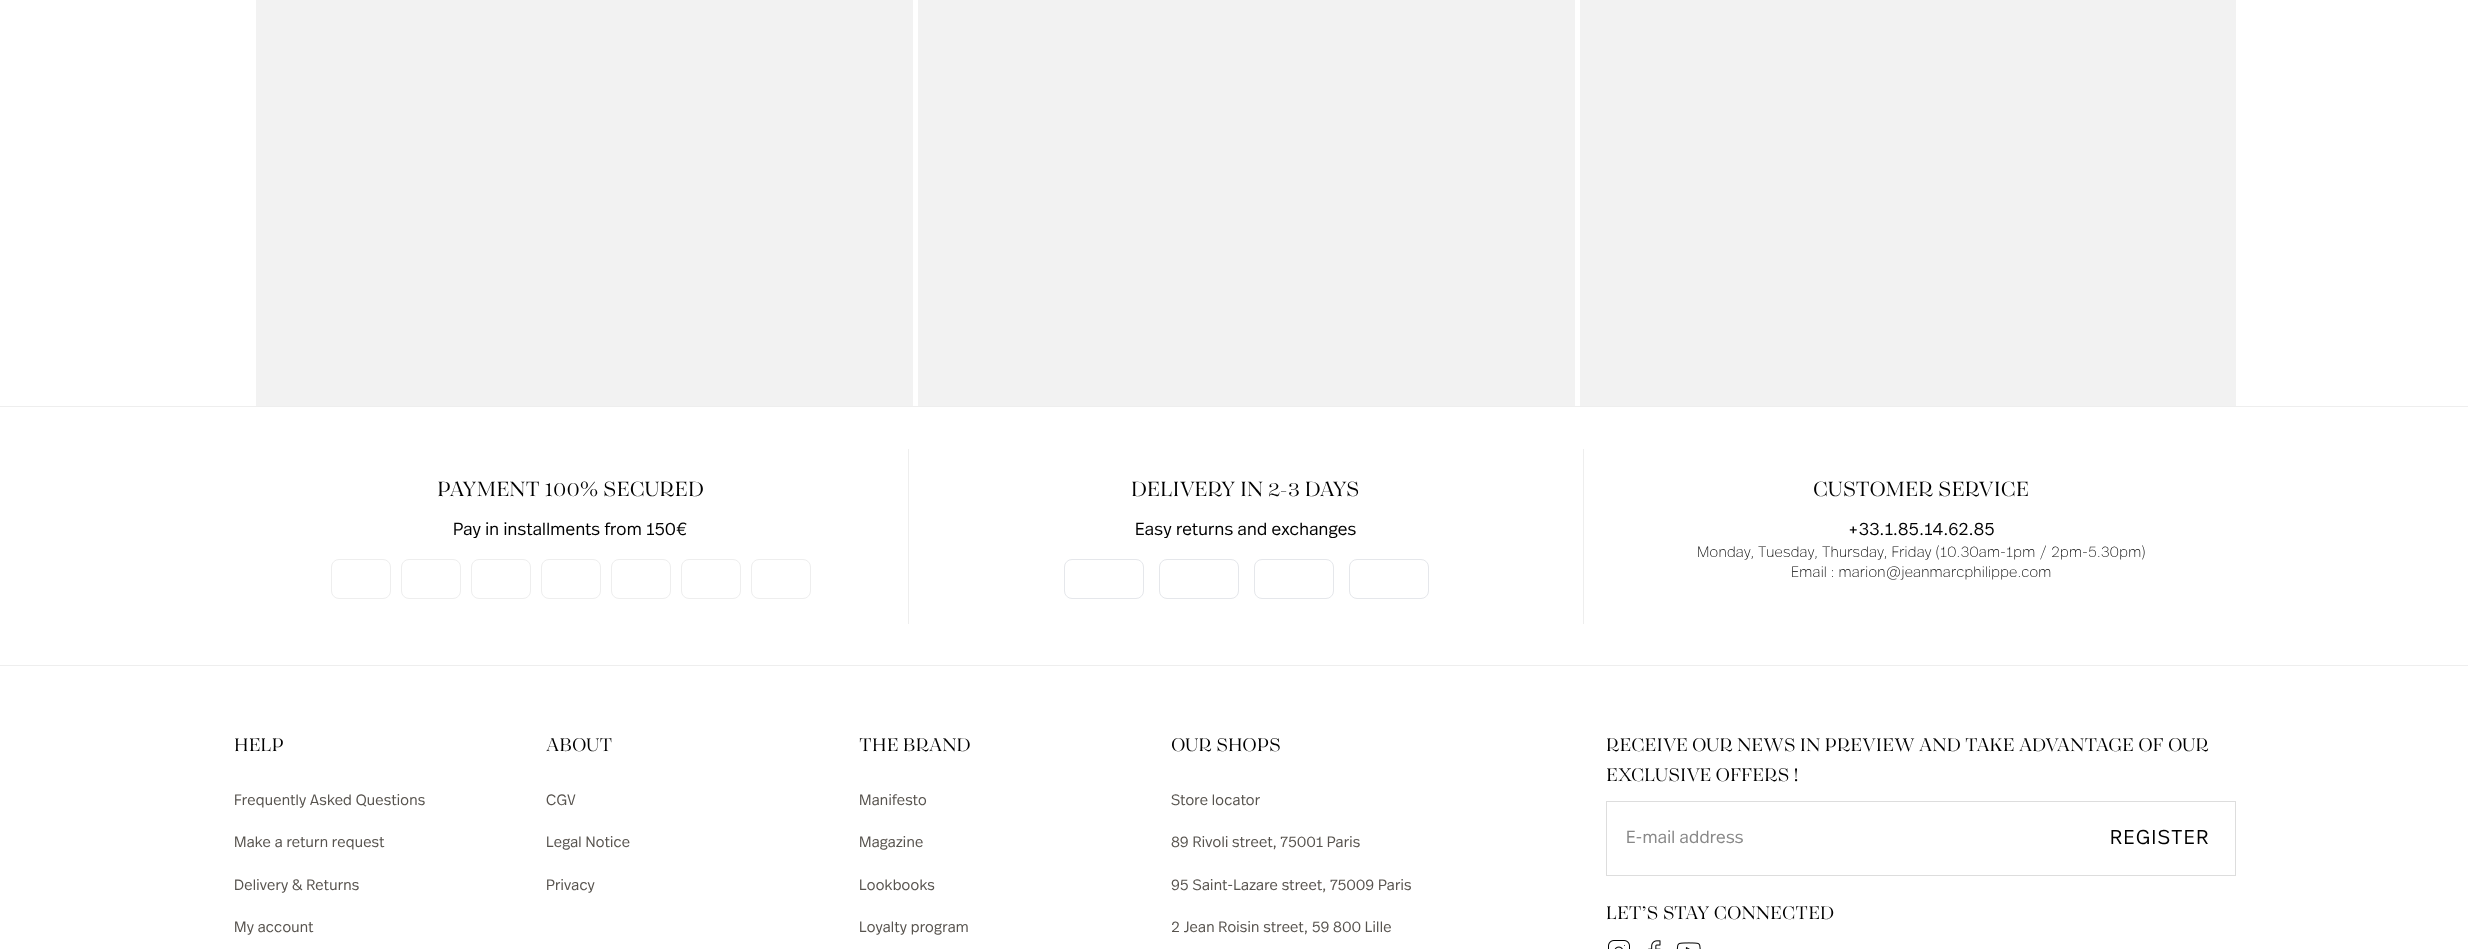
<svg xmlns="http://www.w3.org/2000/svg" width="2492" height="949">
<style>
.a{font:22.5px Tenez;letter-spacing:0.25px;fill:#000}
.b{font:300 17.5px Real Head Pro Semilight;letter-spacing:0.25px;fill:#000}
.c{font:200 15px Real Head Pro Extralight;letter-spacing:0.25px;fill:#000}
.d{font:20px Tenez;letter-spacing:0.25px;fill:#000}
.e{font:300 15px Real Head Pro Semilight;letter-spacing:0.25px;fill:#57534e}
.f{font:300 17.5px Real Head Pro Semilight;letter-spacing:0.25px;fill:#888}
.g{font:300 20px Real Head Pro Semilight;letter-spacing:1.5px;fill:#000}
</style>
<defs>
<linearGradient id="g1" gradientUnits="userSpaceOnUse" x1="256" y1="-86" x2="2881" y2="-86"><stop offset="0.25" stop-color="#f2f2f2"/><stop offset="0.37" stop-color="#e6e6e6"/><stop offset="0.63" stop-color="#f2f2f2"/></linearGradient>
<linearGradient id="g2" gradientUnits="userSpaceOnUse" x1="918" y1="-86" x2="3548" y2="-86"><stop offset="0.25" stop-color="#f2f2f2"/><stop offset="0.37" stop-color="#e6e6e6"/><stop offset="0.63" stop-color="#f2f2f2"/></linearGradient>
<linearGradient id="g3" gradientUnits="userSpaceOnUse" x1="1580" y1="-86" x2="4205" y2="-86"><stop offset="0.25" stop-color="#f2f2f2"/><stop offset="0.37" stop-color="#e6e6e6"/><stop offset="0.63" stop-color="#f2f2f2"/></linearGradient>
</defs>
<rect width="100%" height="100%" fill="#fff"/>
<path fill="url(#g1)" d="M256 0h657v406H256z"/>
<path fill="url(#g2)" d="M918 0h657v406H918z"/>
<path fill="url(#g3)" d="M1580 0h656v406H1580z"/>
<path fill="#eee" d="M0 406h2468v1H0z"/>
<path fill="#eee" d="M908 449h1v175H908z"/>
<rect fill="none" stroke="#eee" x="331.5" y="559.5" width="59" height="39" rx="7.5"/>
<rect fill="none" stroke="#eee" x="401.5" y="559.5" width="59" height="39" rx="7.5"/>
<rect fill="none" stroke="#eee" x="471.5" y="559.5" width="59" height="39" rx="7.5"/>
<rect fill="none" stroke="#eee" x="541.5" y="559.5" width="59" height="39" rx="7.5"/>
<rect fill="none" stroke="#eee" x="611.5" y="559.5" width="59" height="39" rx="7.5"/>
<rect fill="none" stroke="#eee" x="681.5" y="559.5" width="59" height="39" rx="7.5"/>
<rect fill="none" stroke="#eee" x="751.5" y="559.5" width="59" height="39" rx="7.5"/>
<path fill="#eee" d="M1583 449h1v175H1583z"/>
<rect fill="none" stroke="#e5e7eb" x="1064.5" y="559.5" width="79" height="39" rx="7.5"/>
<rect fill="none" stroke="#e5e7eb" x="1159.5" y="559.5" width="79" height="39" rx="7.5"/>
<rect fill="none" stroke="#e5e7eb" x="1254.5" y="559.5" width="79" height="39" rx="7.5"/>
<rect fill="none" stroke="#e5e7eb" x="1349.5" y="559.5" width="79" height="39" rx="7.5"/>
<path fill="#eee" d="M0 665h2468v1H0z"/>
<path fill="#ddd" d="M1606 801h630v1H1606z"/>
<path fill="#ddd" d="M2235 801h1v75H2235z"/>
<path fill="#ddd" d="M1606 875h630v1H1606z"/>
<path fill="#ddd" d="M1606 801h1v75H1606z"/>
<image href="1.png" x="1608" y="940" width="22" height="9"/>
<image href="2.png" x="1648" y="940" width="13" height="9"/>
<image href="3.png" x="1676" y="942" width="25" height="7"/>
<text class="a" x="437" y="496">PAYMENT 100% SECURED</text>
<text class="b" x="453" y="535">Pay in installments from 150€</text>
<text class="a" x="1131" y="496">DELIVERY IN 2-3 DAYS</text>
<text class="b" x="1135" y="535">Easy returns and exchanges</text>
<text class="a" x="1813" y="496">CUSTOMER SERVICE</text>
<text class="b" x="1848" y="535">+33.1.85.14.62.85</text>
<text class="c" x="1697" y="557">Monday, Tuesday, Thursday, Friday (10.30am-1pm / 2pm-5.30pm)</text>
<text class="c" x="1791" y="577">Email : marion@jeanmarcphilippe.com</text>
<text class="d" x="234" y="751">HELP</text>
<text class="e" x="234" y="805">Frequently Asked Questions</text>
<text class="e" x="234" y="847">Make a return request</text>
<text class="e" x="234" y="890">Delivery &amp; Returns</text>
<text class="e" x="234" y="932">My account</text>
<text class="d" x="546" y="751">ABOUT</text>
<text class="e" x="546" y="805">CGV</text>
<text class="e" x="546" y="847">Legal Notice</text>
<text class="e" x="546" y="890">Privacy</text>
<text class="d" x="859" y="751">THE BRAND</text>
<text class="e" x="859" y="805">Manifesto</text>
<text class="e" x="859" y="847">Magazine</text>
<text class="e" x="859" y="890">Lookbooks</text>
<text class="e" x="859" y="932">Loyalty program</text>
<text class="d" x="1171" y="751">OUR SHOPS</text>
<text class="e" x="1171" y="805">Store locator</text>
<text class="e" x="1171" y="847">89 Rivoli street, 75001 Paris</text>
<text class="e" x="1171" y="890">95 Saint-Lazare street, 75009 Paris</text>
<text class="e" x="1171" y="932">2 Jean Roisin street, 59 800 Lille</text>
<text class="d" x="1606" y="751">RECEIVE OUR NEWS IN PREVIEW AND TAKE ADVANTAGE OF OUR</text>
<text class="d" x="1606" y="781">EXCLUSIVE OFFERS !</text>
<text class="f" x="1626" y="843">E-mail address</text>
<text class="g" x="2110" y="844">REGISTER</text>
<text class="d" x="1606" y="919">LET’S STAY CONNECTED</text>
</svg>
